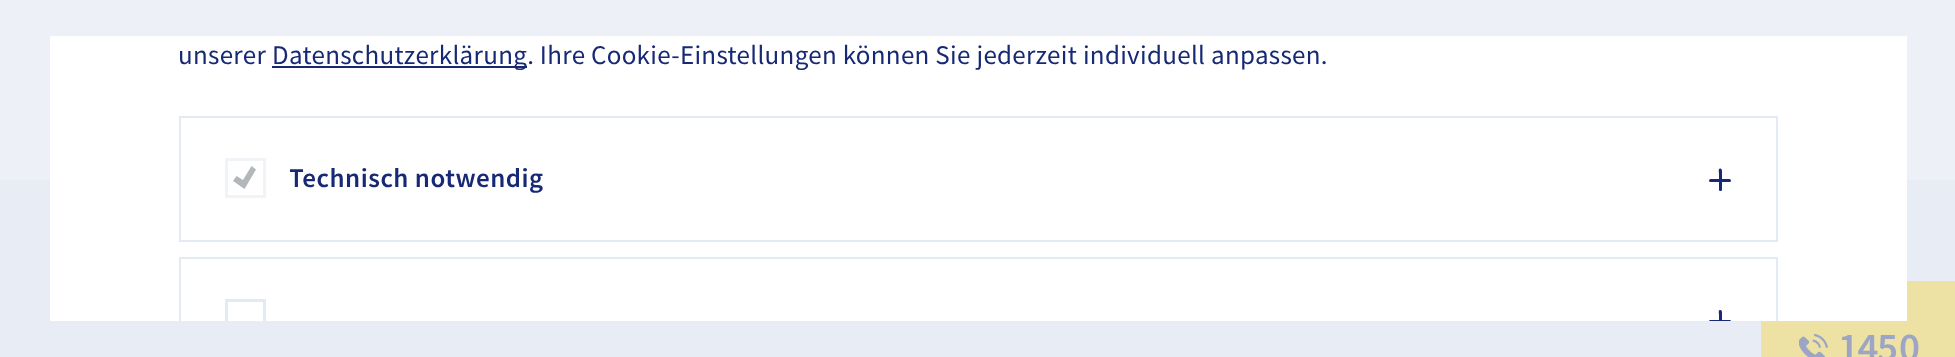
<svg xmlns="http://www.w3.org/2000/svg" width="1955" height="357">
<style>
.a{font:27px Source Sans Pro;letter-spacing:0.3px;fill:#172875}
.b{font:600 27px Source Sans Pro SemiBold;letter-spacing:0.5px;fill:#172875}
.c{font:600 41px Source Sans Pro SemiBold;letter-spacing:-1.5px;fill:#9ca5c6}
.d{font:600 41px Source Sans Pro SemiBold;letter-spacing:-1px;fill:#9ca5c6}
</style>
<defs>
<clipPath id="clip1"><path d="M50 36h1857v285H50z"/></clipPath>
<clipPath id="clip2"><path d="M225 299h192v22H225z"/></clipPath>
<clipPath id="clip3"><path d="M290 158h253v40H290z"/></clipPath>
</defs>
<rect width="100%" height="100%" fill="#e8edf5"/>
<path fill="#edf1f7" d="M0 0h1955v180H0z"/>
<path fill="#ede2a4" d="M1761 281h194v76H1761z"/>
<path fill="#fff" d="M50 36h1857v285H50z"/>
<path fill="#172875" d="M272 66h255v2H272z"/>
<path fill="none" stroke="#e4eaf3" stroke-width="2" d="M180 117h1597v124H180z"/>
<path fill="none" stroke="#f0f3f8" stroke-width="3" d="M226.5 159.5h38v37H226.5z"/>
<path fill="#b2b7ba" d="M236.5 176l6.5 4l8.5-14l4.5 3.5l-11.5 19.5l-11.5-8z"/>
<rect fill="#172875" x="1709" y="179" width="22" height="3" rx="1.5"/>
<path fill="#172875" d="M1719 189.5v-16c0-1-1-4.5 1-5c2.5-.5 2 4 2 5v16.5c-.5 1.5-3 1.5-3-.5z"/>
<g clip-path="url(#clip1)">
<path fill="none" stroke="#e4eaf3" stroke-width="2" d="M180 258h1597v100H180z"/>
</g>
<g clip-path="url(#clip2)">
<path fill="none" stroke="#e4eaf3" stroke-width="3" d="M226.5 300.5h38v37H226.5z"/>
</g>
<path fill="#172875" d="M1710.5 320h19c1 0 1.5 .5 1.5 1.5v-.5h-22v.5c0-1 .5-1.5 1.5-1.5z"/>
<g clip-path="url(#clip1)">
<path fill="#172875" d="M1719 331v-16.5c0-1-1-4.5 1-4.5c2.5-.5 2 3.5 2 4.5v16.5c-.5 2-3 1.5-3 0z"/>
</g>
<image href="1.png" x="1799" y="333" width="29" height="24"/>
<text class="a" x="178" y="64">unserer</text>
<text class="a" x="272" y="64">Datenschutzerklärung. Ihre Cookie-Einstellungen können Sie jederzeit individuell anpassen.</text>
<g clip-path="url(#clip3)">
<text class="b" x="289" y="187">Technisch notwendig</text>
</g>
<text class="c" x="1838" y="361">145</text>
<text class="d" x="1899" y="361">0</text>
</svg>
